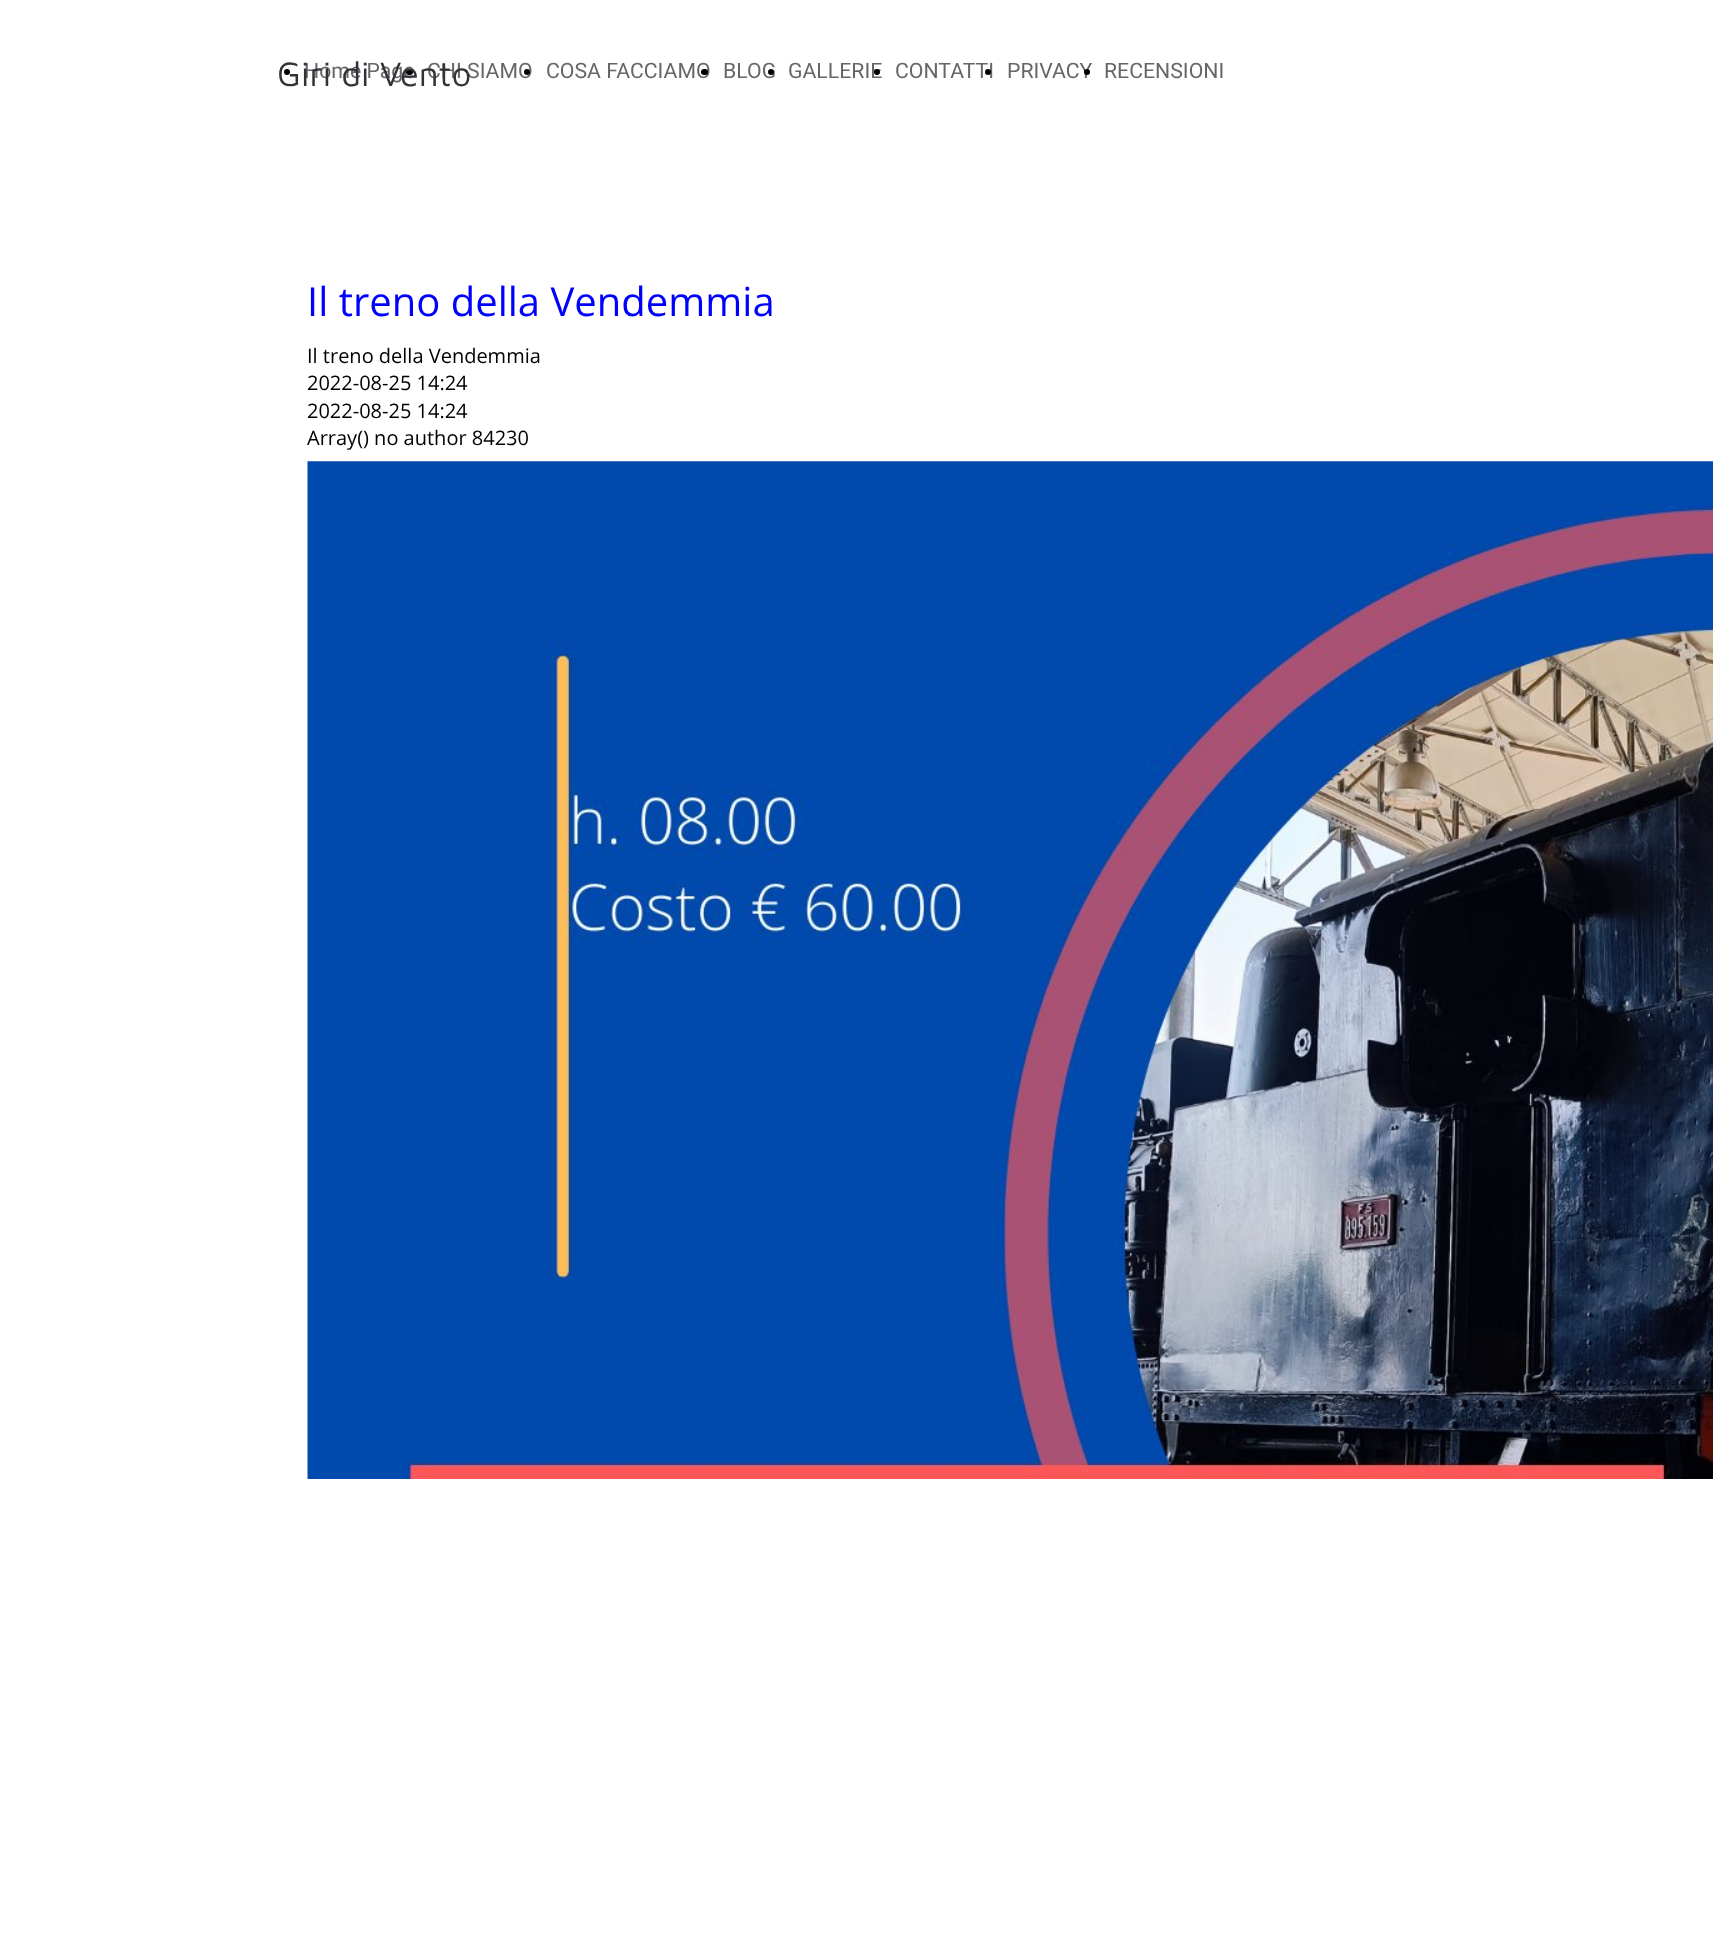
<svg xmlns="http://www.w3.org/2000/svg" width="1713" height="1938">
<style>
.a{font:21.25px Roboto;fill:#676569}
.b{font:35px Maven Pro;fill:#343237}
.c{font:40px Open Sans;fill:#00f}
.d{font:20px Open Sans;fill:#000}
</style>
<rect width="100%" height="100%" fill="#fff"/>
<circle fill="#000" cx="287" cy="72" r="3"/>
<image href="1.png" x="307" y="461" width="1406" height="1018"/>
<text class="a" x="304" y="78">Home Page</text>
<rect fill="#000" x="406" y="69" width="7" height="6" rx="3"/>
<text class="a" x="427" y="78">CHI SIAMO</text>
<text class="b" x="277" y="86">Giri di Vento</text>
<circle fill="#000" cx="527" cy="72" r="3"/>
<text class="a" x="546" y="78">COSA FACCIAMO</text>
<rect fill="#000" x="701" y="69" width="7" height="6" rx="3"/>
<text class="a" x="723" y="78">BLOG</text>
<circle fill="#000" cx="771" cy="72" r="3"/>
<text class="a" x="788" y="78">GALLERIE</text>
<circle fill="#000" cx="877" cy="72" r="3"/>
<text class="a" x="895" y="78">CONTATTI</text>
<circle fill="#000" cx="988" cy="72" r="3"/>
<text class="a" x="1007" y="78">PRIVACY</text>
<circle fill="#000" cx="1087" cy="72" r="3"/>
<text class="a" x="1104" y="78">RECENSIONI</text>
<text class="c" x="307" y="316">Il treno della Vendemmia</text>
<text class="d" x="307" y="363">Il treno della Vendemmia</text>
<text class="d" x="307" y="390">2022-08-25 14:24</text>
<text class="d" x="307" y="418">2022-08-25 14:24</text>
<text class="d" x="307" y="445">Array() no author 84230</text>
</svg>
